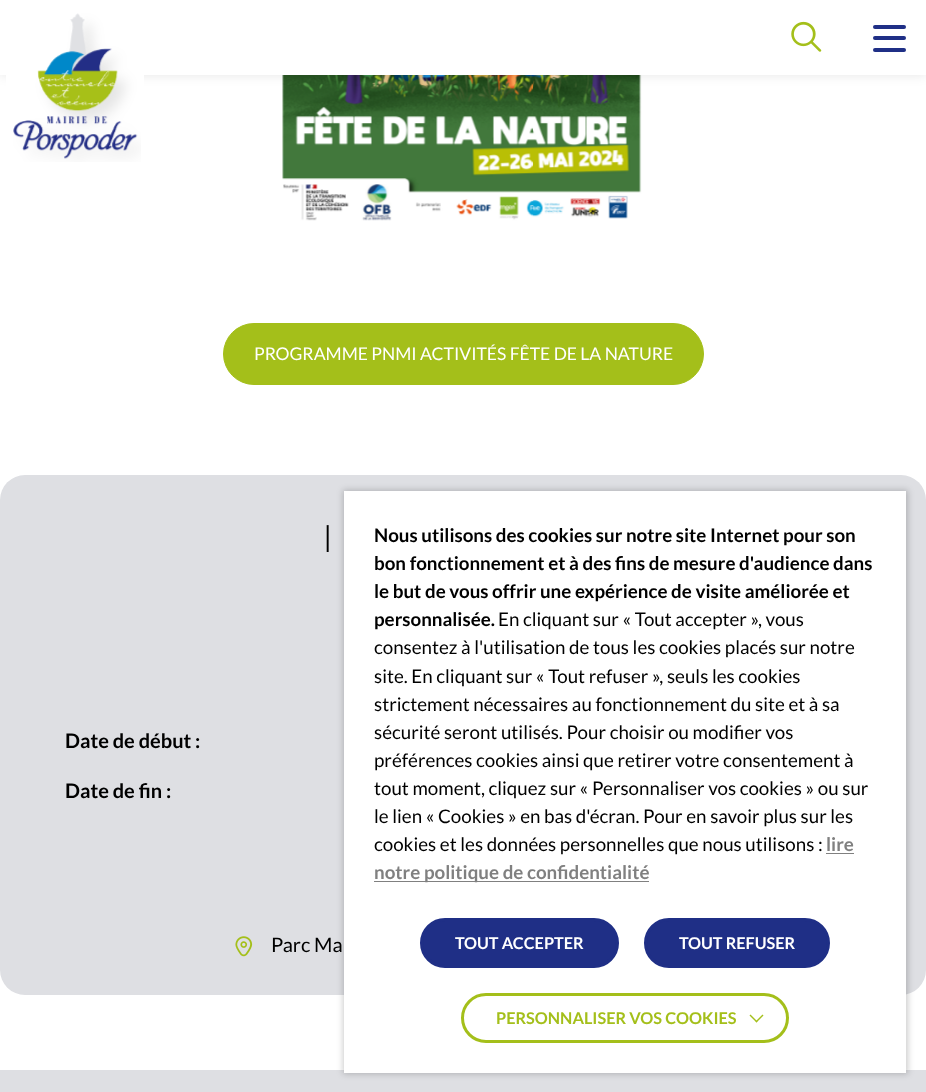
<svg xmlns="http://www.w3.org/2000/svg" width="926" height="1092">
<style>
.a{font:17.5px Lato;fill:#fff}
.b{font:300 38px Lato;fill:#000}
.c{font:bold 20px Lato;fill:#000}
.d{font:20px Lato;fill:#000}
.e{font:bold 18.75px Lato;fill:#000}
.f{font:18.75px Lato;fill:#000}
.g{font:bold 18.75px Lato;fill:#808080}
.h{font:bold 16.25px Lato;fill:#fff}
.i{font:bold 16.25px Lato;fill:#a4bf1a}
</style>
<rect width="100%" height="100%" fill="#fff"/>
<image href="3.png" x="282" y="75" width="360" height="146"/>
<path fill="#0000001a" filter="blur(6px)" d="M0 0h926v75H0z"/>
<path fill="#fff" d="M0 0h926v75H0z"/>
<rect fill="#fff" x="6" y="6" width="138" height="159" rx="6"/>
<image href="1.png" x="13" y="13" width="128" height="149"/>
<image href="2.png" x="791" y="21" width="31" height="31"/>
<rect fill="#1f2f86" x="873" y="25" width="33" height="4" rx="2"/>
<rect fill="#1f2f86" x="873" y="36" width="33" height="4" rx="2"/>
<rect fill="#1f2f86" x="873" y="48" width="33" height="4" rx="2"/>
<rect fill="#a4bf1a" stroke="#a4bf1a" x="223.5" y="323.5" width="480" height="61" rx="30.5"/>
<rect fill="#dedfe3" y="475" width="926" height="520" rx="25"/>
<image href="4.png" x="235" y="936" width="18" height="21"/>
<path fill="#dedfe3" d="M0 1070h926v22H0z"/>
<path fill="#00000033" filter="blur(3px)" d="M343 490h565v584H343z"/>
<path fill="#fff" d="M344 491h562v582H344z"/>
<path fill="#808080" d="M826 853h28v1H826z"/>
<path fill="#808080" d="M374 881h275v1H374z"/>
<rect fill="#1f2f86" stroke="#1f2f86" stroke-width="3" x="421.5" y="919.5" width="196" height="47" rx="23.5"/>
<rect fill="#1f2f86" stroke="#1f2f86" stroke-width="3" x="645.5" y="919.5" width="183" height="47" rx="23.5"/>
<rect fill="none" stroke="#a4bf1a" stroke-width="3" x="462.5" y="994.5" width="325" height="47" rx="23.5"/>
<path fill="#a4bf1a" d="M763.5 1015.5l-7 7l-1-1l7-7z"/>
<path fill="#a4bf1a" d="M757.5 1021.5l-1 1l-7-7l1-1z"/>
<text class="a" x="254" y="360">PROGRAMME PNMI ACTIVITÉS FÊTE DE LA NATURE</text>
<text class="b" x="322" y="552">I</text>
<text class="c" x="65" y="748">Date de début :</text>
<text class="c" x="65" y="798">Date de fin :</text>
<text class="d" x="271" y="952">Parc Ma</text>
<text class="e" x="374" y="542">Nous utilisons des cookies sur notre site Internet pour son</text>
<text class="e" x="374" y="570">bon fonctionnement et à des fins de mesure d'audience dans</text>
<text class="e" x="374" y="598">le but de vous offrir une expérience de visite améliorée et</text>
<text class="e" x="374" y="626">personnalisée.</text>
<text class="f" x="498" y="626">En cliquant sur « Tout accepter », vous</text>
<text class="f" x="374" y="654">consentez à l'utilisation de tous les cookies placés sur notre</text>
<text class="f" x="374" y="683">site. En cliquant sur « Tout refuser », seuls les cookies</text>
<text class="f" x="374" y="711">strictement nécessaires au fonctionnement du site et à sa</text>
<text class="f" x="374" y="739">sécurité seront utilisés. Pour choisir ou modifier vos</text>
<text class="f" x="374" y="767">préférences cookies ainsi que retirer votre consentement à</text>
<text class="f" x="374" y="795">tout moment, cliquez sur « Personnaliser vos cookies » ou sur</text>
<text class="f" x="374" y="823">le lien « Cookies » en bas d'écran. Pour en savoir plus sur les</text>
<text class="f" x="374" y="851">cookies et les données personnelles que nous utilisons :</text>
<text class="g" x="826" y="851">lire</text>
<text class="g" x="374" y="879">notre politique de confidentialité</text>
<text class="h" x="455" y="949">TOUT ACCEPTER</text>
<text class="h" x="679" y="949">TOUT REFUSER</text>
<text class="i" x="496" y="1024">PERSONNALISER VOS COOKIES</text>
</svg>
